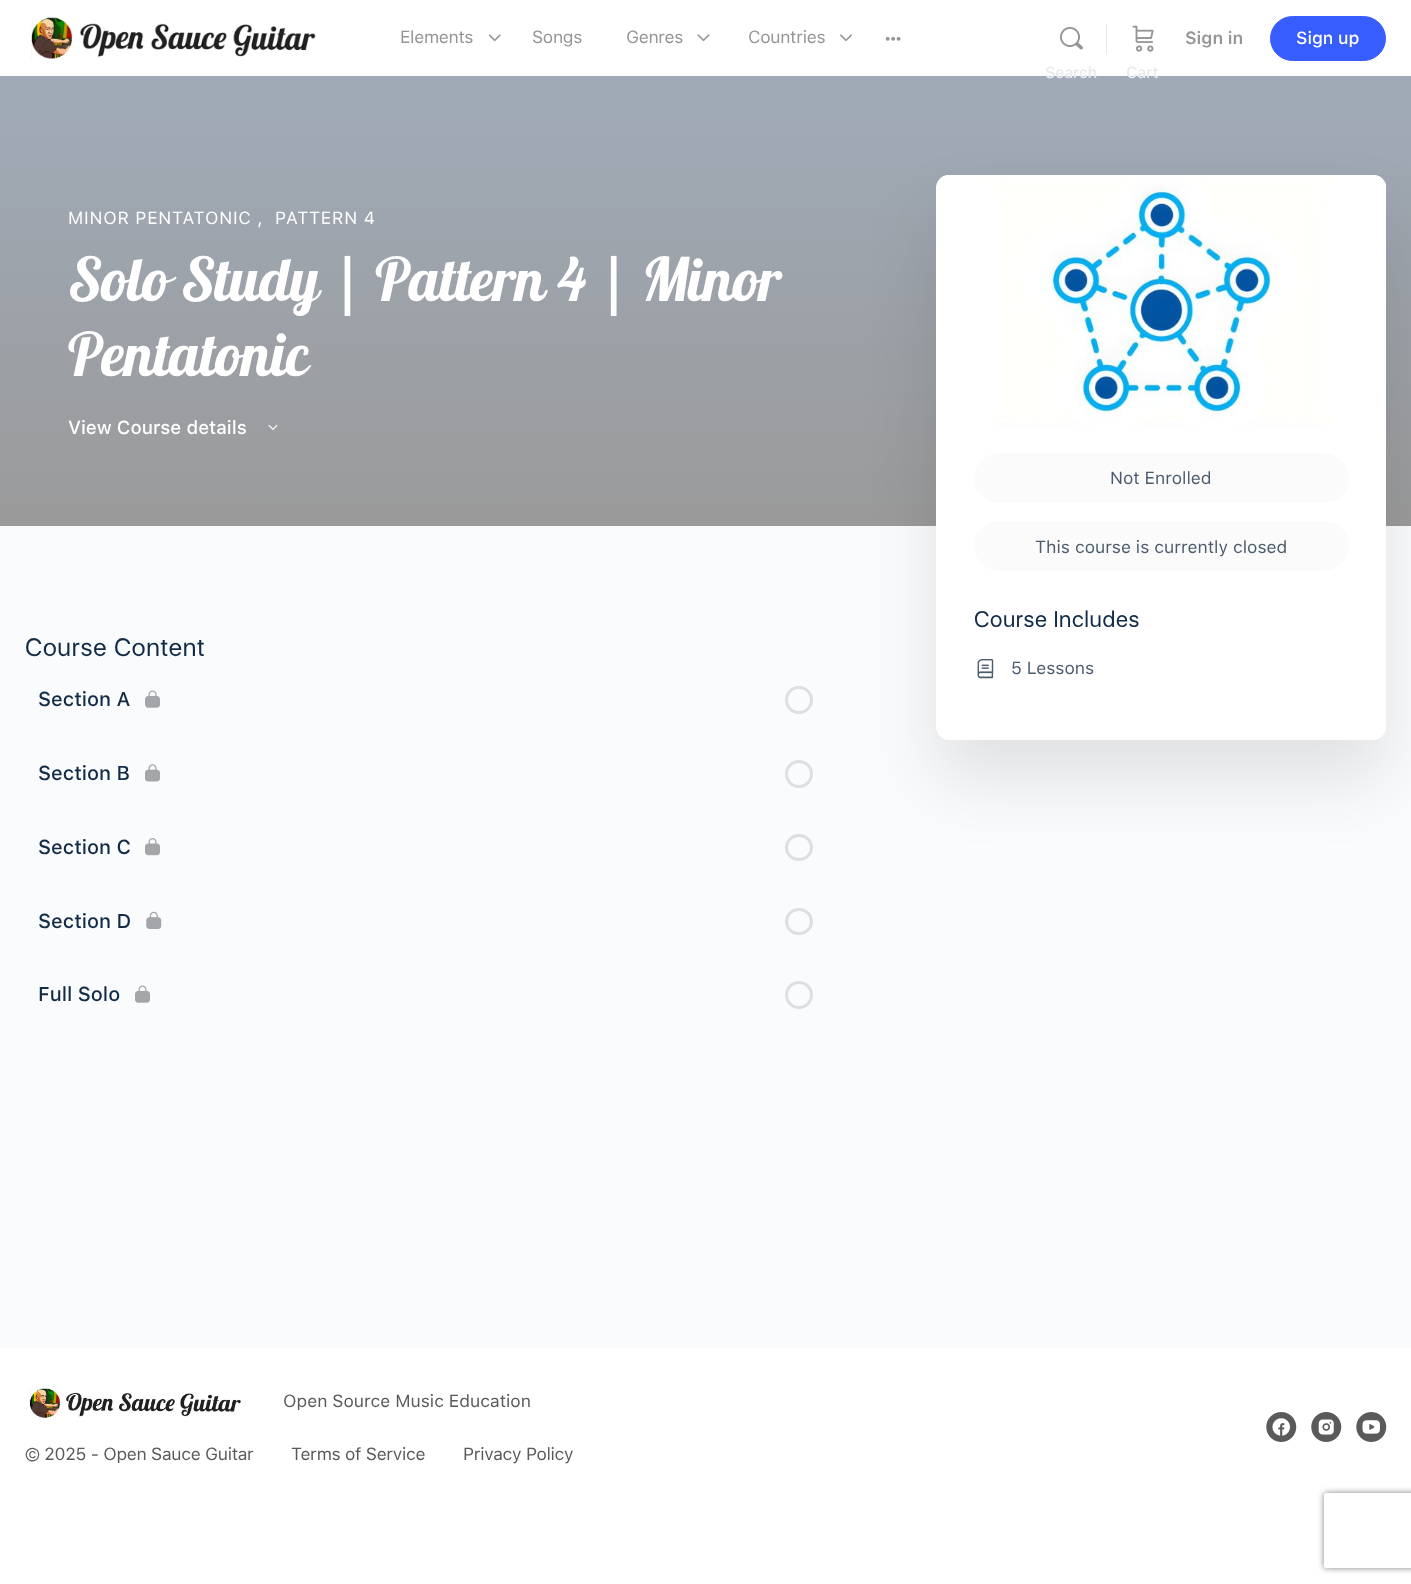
<svg xmlns="http://www.w3.org/2000/svg" width="1411" height="1584">
<style>
.a{font:17.5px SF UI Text;letter-spacing:-0.3px;fill:#939597}
.b{font:600 17.5px SF UI Text;fill:#939597}
.c{font:500 17.5px SF UI Text;fill:#fff}
.d{font:500 16px SF UI Text;letter-spacing:-0.3px;fill:#e8eaed}
.e{font:17.5px SF UI Text;letter-spacing:0.75px;fill:#fff}
.f{font:60px Lobster;letter-spacing:-0.6px;fill:#fff}
.g{font:500 18.75px SF UI Text;fill:#fff}
.h{font:17.5px SF UI Text;fill:#4d5c6d}
.i{font:22.5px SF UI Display;letter-spacing:0.6px;fill:#122b46}
.j{font:25px SF UI Display;letter-spacing:0.75px;fill:#122b46}
.k{font:500 20px SF UI Text;fill:#122b46}
.l{font:17.5px SF UI Text;fill:#5a5a5a}
.m{font:17.5px SF UI Text;letter-spacing:-0.3px;fill:#5a5a5a}
</style>
<defs>
<linearGradient id="g1" gradientUnits="userSpaceOnUse" x1="706" y1="76" x2="706" y2="526"><stop offset="0.04" stop-color="#a0aab7"/><stop offset="1" stop-color="#9a9a9a"/></linearGradient>
<clipPath id="clip1"><path d="M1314 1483h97v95h-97zm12.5 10h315c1.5 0 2.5 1 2.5 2.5v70c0 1.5-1 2.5-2.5 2.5h-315c-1.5 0-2.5-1-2.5-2.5v-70c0-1.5 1-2.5 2.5-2.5z" clip-rule="evenodd"/></clipPath>
</defs>
<rect width="100%" height="100%" fill="#fafbfd"/>
<path fill="#fff" d="M0 0h1411v76H0z"/>
<image href="1.png" x="31" y="17" width="285" height="42"/>
<image href="2.png" x="488" y="34" width="13" height="8"/>
<image href="3.png" x="697" y="34" width="13" height="8"/>
<image href="4.png" x="840" y="34" width="12" height="7"/>
<image href="5.png" x="885" y="36" width="16" height="5"/>
<path fill="#e9eaea" d="M1106 24h1v30H1106z"/>
<rect fill="#385dff" stroke="#385dff" x="1270.5" y="16.5" width="115" height="44" rx="22"/>
<image href="6.png" x="1060" y="27" width="23" height="23"/>
<image href="7.png" x="1132" y="25" width="22" height="27"/>
<path fill="url(#g1)" d="M0 76h1411v450H0z"/>
<image href="8.png" x="268" y="424" width="10" height="6"/>
<rect fill="#0000001a" filter="blur(34px)" x="936" y="215" width="450" height="565" rx="13"/>
<path fill="#fff" d="M949 175h424c7 0 13 6 13 13v240h-450v-240c0-7 6-13 13-13z"/>
<image href="9.png" x="936" y="175" width="450" height="252"/>
<path fill="#fff" d="M936 428h450v299c0 7-6 13-13 13h-424c-7 0-13-6-13-13z"/>
<rect fill="#fbfbfc" x="974" y="453" width="375" height="50" rx="25"/>
<rect fill="#fbfbfc" x="974" y="521" width="375" height="50" rx="25"/>
<image href="10.png" x="977" y="659" width="17" height="20"/>
<image href="11.png" x="145" y="690" width="15" height="18"/>
<circle fill="none" stroke="#dedfe2" stroke-width="3" cx="799" cy="700" r="12.5"/>
<image href="12.png" x="145" y="764" width="15" height="18"/>
<circle fill="none" stroke="#dedfe2" stroke-width="3" cx="799" cy="774" r="12.5"/>
<image href="13.png" x="145" y="838" width="15" height="18"/>
<rect fill="none" stroke="#dedfe2" stroke-width="3" x="786.5" y="835.5" width="25" height="24" rx="12"/>
<image href="14.png" x="146" y="911" width="16" height="18"/>
<rect fill="none" stroke="#dedfe2" stroke-width="3" x="786.5" y="909.5" width="25" height="24" rx="12"/>
<image href="11.png" x="135" y="985" width="15" height="18"/>
<circle fill="none" stroke="#dedfe2" stroke-width="3" cx="799" cy="995" r="12.5"/>
<path fill="#fff" d="M0 1348h1411v236H0z"/>
<image href="15.png" x="29" y="1388" width="212" height="30"/>
<image href="16.png" x="1266" y="1412" width="31" height="30"/>
<image href="17.png" x="1311" y="1412" width="31" height="30"/>
<image href="18.png" x="1356" y="1412" width="31" height="30"/>
<g clip-path="url(#clip1)">
<rect fill="#808080" filter="blur(3px)" x="1324" y="1493" width="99" height="75" rx="2.5"/>
</g>
<text class="a" x="400" y="43">Elements</text>
<text class="a" x="532" y="43">Songs</text>
<text class="a" x="626" y="43">Genres</text>
<text class="a" x="748" y="43">Countries</text>
<text class="b" x="1185" y="44">Sign in</text>
<text class="c" x="1296" y="44">Sign up</text>
<text class="d" x="1045" y="78">Search</text>
<text class="d" x="1126" y="78">Cart</text>
<text class="e" x="68" y="224">MINOR PENTATONIC ,</text>
<text class="e" x="275" y="224">PATTERN 4</text>
<text class="f" x="68" y="301">Solo Study | Pattern 4 | Minor</text>
<text class="f" x="68" y="376">Pentatonic</text>
<text class="g" x="68" y="434">View Course details</text>
<text class="h" x="1110" y="484">Not Enrolled</text>
<text class="h" x="1035" y="553">This course is currently closed</text>
<text class="i" x="974" y="627">Course Includes</text>
<text class="h" x="1011" y="674">5 Lessons</text>
<text class="j" x="25" y="656">Course Content</text>
<text class="k" x="38" y="706">Section A</text>
<text class="k" x="38" y="780">Section B</text>
<text class="k" x="38" y="854">Section C</text>
<text class="k" x="38" y="928">Section D</text>
<text class="k" x="38" y="1001">Full Solo</text>
<text class="l" x="283" y="1407">Open Source Music Education</text>
<text class="m" x="25" y="1460">© 2025 - Open Sauce Guitar</text>
<text class="m" x="291" y="1460">Terms of Service</text>
<text class="m" x="463" y="1460">Privacy Policy</text>
</svg>
